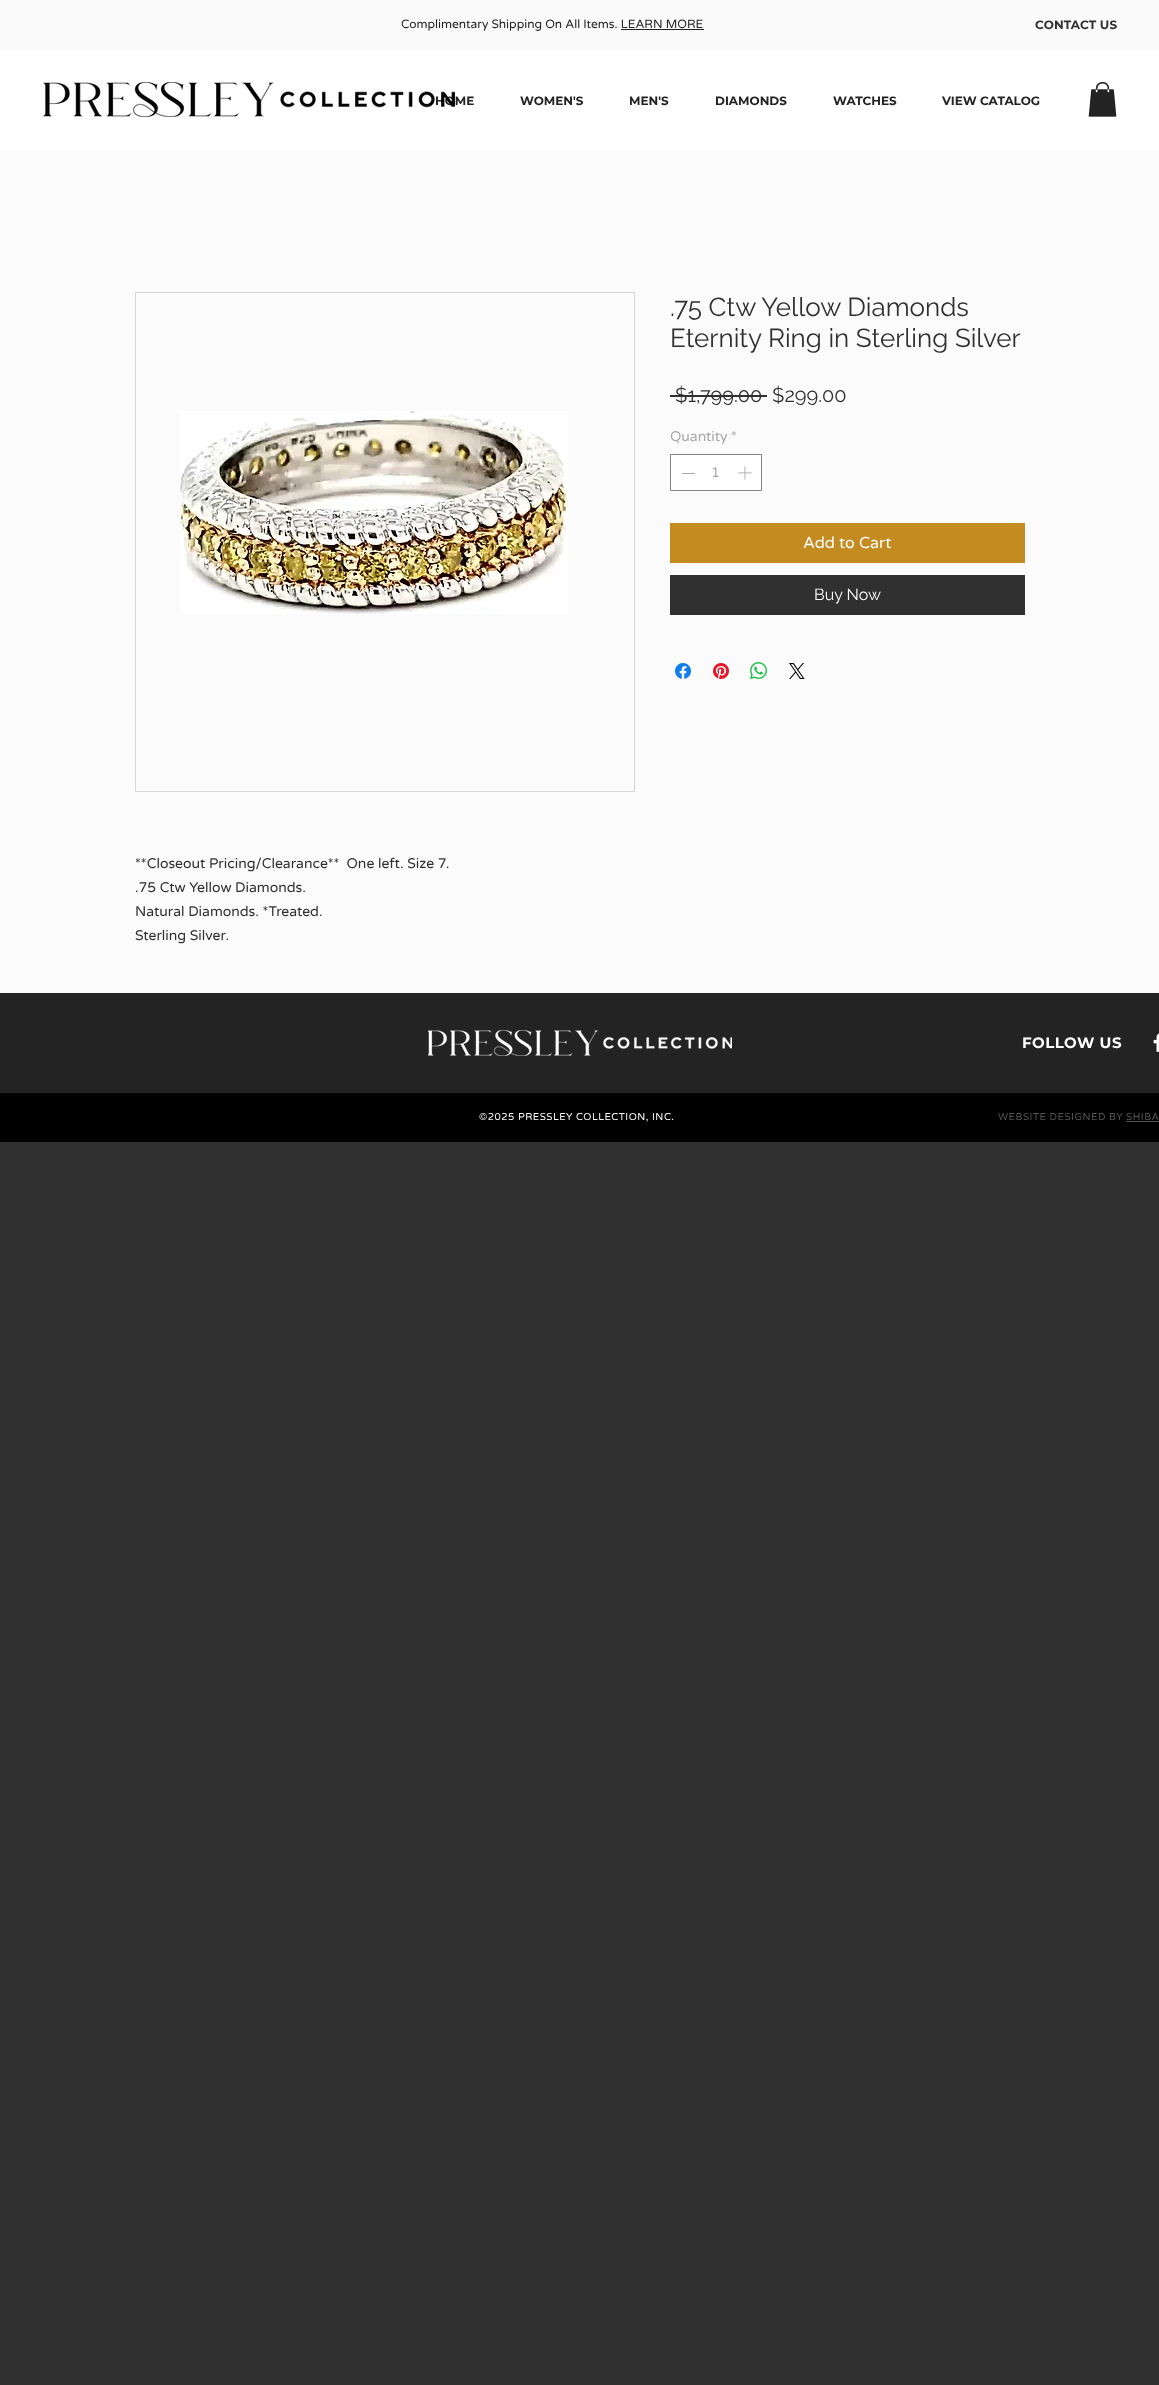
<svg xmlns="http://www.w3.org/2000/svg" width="1159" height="2385">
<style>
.a{font:12px Varela Round;fill:#242323}
.b{font:bold 12px Montserrat;fill:#242323}
.c{font:bold 12px Montserrat;letter-spacing:0.1px;fill:#303030}
.d{font:26px Raleway;fill:#303030}
.e{font:20px Raleway;fill:#303030}
.f{font:14px Varela Round;fill:#a8a8a8}
.g{font:16px Varela Round;fill:#fff}
.h{font:16px Raleway;fill:#fff}
.i{font:14px Varela Round;fill:#303030}
.j{font:bold 15px Montserrat;letter-spacing:0.5px;fill:#fff}
.k{font:10px Varela Round;letter-spacing:0.5px;fill:#fff}
.l{font:10px Varela Round;letter-spacing:0.5px;fill:#545454}
</style>
<rect width="100%" height="100%" fill="#303030"/>
<path fill="#fafafa" d="M0 0h1159v50H0z"/>
<path fill="#242323" d="M621 29h83v1H621z"/>
<path fill="#fff" d="M0 50h1159v100H0z"/>
<image href="1.png" x="1088" y="82" width="29" height="35"/>
<path fill="#fbfbfb" d="M0 150h1159v843H0z"/>
<path fill="#303030" d="M670 395h97v2H670z"/>
<path fill="#fff" stroke="#838383" d="M670.5 454.5h91v36H670.5z"/>
<path fill="#a8a8a8" d="M682 473h13v1H682z"/>
<image href="3.png" x="738" y="466" width="14" height="14"/>
<path fill="#c48b21" d="M670 523h355v40H670z"/>
<path fill="#303030" d="M670 575h355v40H670z"/>
<image href="4.png" x="675" y="663" width="16" height="16"/>
<image href="5.png" x="713" y="663" width="16" height="16"/>
<image href="6.png" x="750" y="662" width="17" height="17"/>
<image href="7.png" x="789" y="663" width="16" height="16"/>
<path fill="none" stroke="#d6d6d6" d="M135.5 292.5h499v499H135.5z"/>
<image href="8.png" x="180" y="411" width="388" height="203"/>
<path fill="#242323" d="M0 993h1159v100H0z"/>
<image href="9.png" x="428" y="1030" width="304" height="26"/>
<image href="10.png" x="1153" y="1033" width="6" height="19"/>
<path fill="#000" d="M0 1093h1159v49H0z"/>
<path fill="#545454" d="M1126 1121h33v1H1126z"/>
<text class="a" x="401" y="28">Complimentary Shipping On All Items. LEARN MORE</text>
<text class="b" x="435" y="105">HOME</text>
<text class="b" x="520" y="105">WOMEN'S</text>
<text class="b" x="629" y="105">MEN'S</text>
<text class="b" x="715" y="105">DIAMONDS</text>
<text class="b" x="833" y="105">WATCHES</text>
<text class="b" x="942" y="105">VIEW CATALOG</text>
<text class="c" x="1035" y="29">CONTACT US</text>
<image href="2.png" x="42" y="82" width="413" height="35"/>
<text class="d" x="670" y="316">.75 Ctw Yellow Diamonds</text>
<text class="d" x="670" y="347">Eternity Ring in Sterling Silver</text>
<text class="e" x="675" y="402">$1,799.00</text>
<text class="e" x="772" y="402">$299.00</text>
<text class="f" x="670" y="441">Quantity</text>
<text class="f" x="731" y="441">*</text>
<text class="f" x="711" y="477">1</text>
<text class="g" x="803" y="548">Add to Cart</text>
<text class="h" x="814" y="600">Buy Now</text>
<text class="i" xml:space="preserve" x="135" y="868">**Closeout Pricing/Clearance**  One left. Size 7.</text>
<text class="i" x="135" y="892">.75 Ctw Yellow Diamonds.</text>
<text class="i" x="135" y="916">Natural Diamonds. *Treated.</text>
<text class="i" x="135" y="940">Sterling Silver.</text>
<text class="j" x="1022" y="1048">FOLLOW US</text>
<text class="k" x="479" y="1120">©2025 PRESSLEY COLLECTION, INC.</text>
<text class="l" x="998" y="1120">WEBSITE DESIGNED BY SHIBA</text>
</svg>
